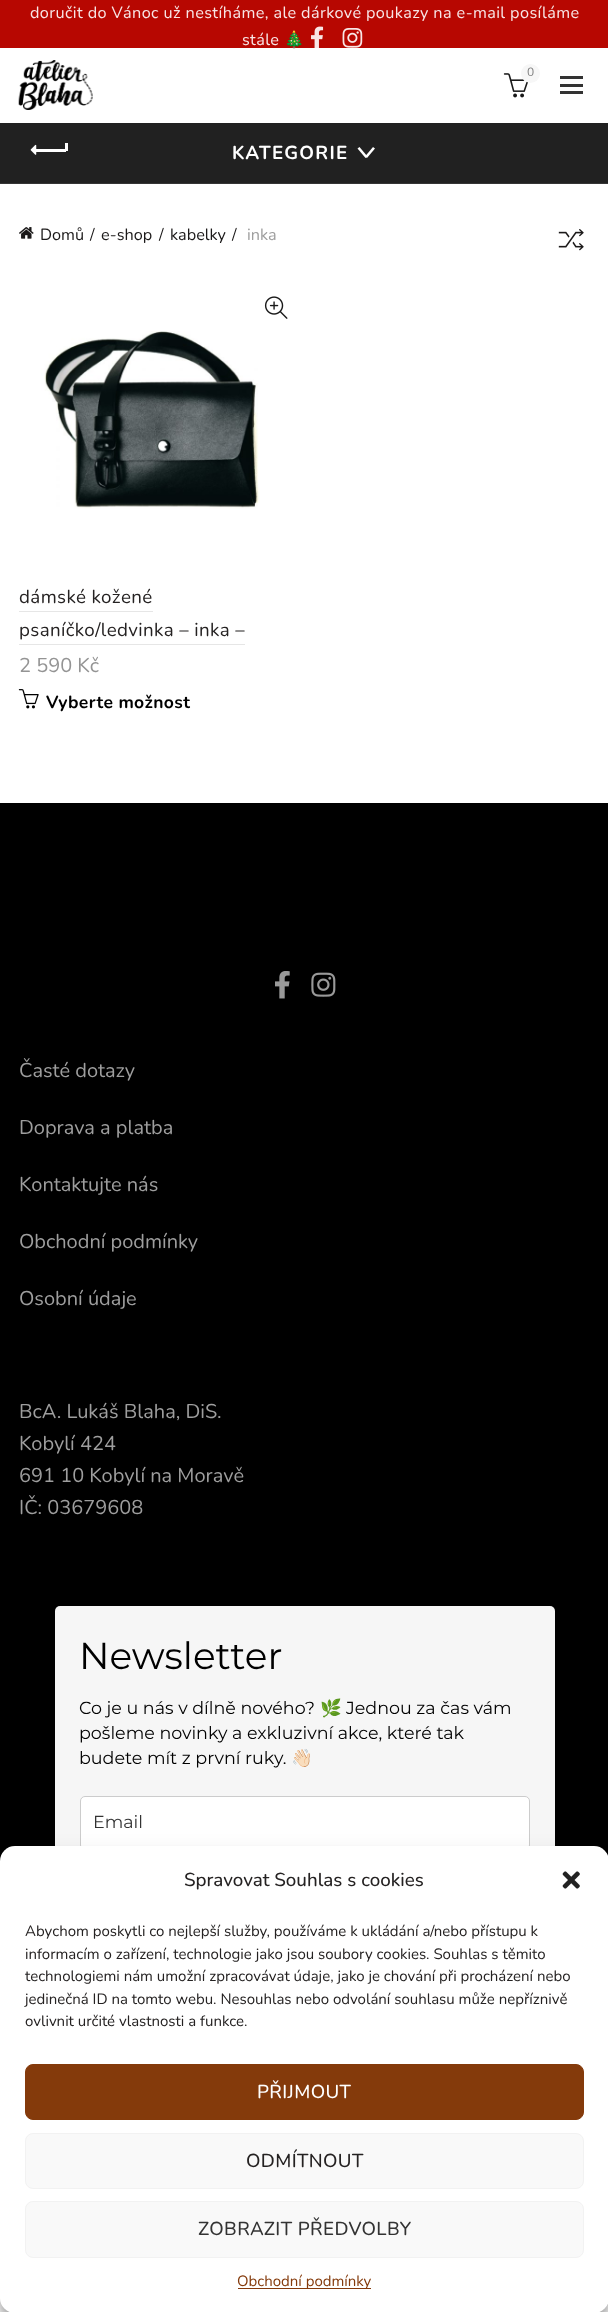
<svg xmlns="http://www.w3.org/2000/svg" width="608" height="2312">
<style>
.a{font:16.25px Nunito;letter-spacing:0.38px;fill:#f8e6e6}
.b{font:16.25px Noto Color Emoji;letter-spacing:0.38px;fill:#f8e6e6}
.c{font:12px Nunito;fill:#7e7e7e}
.d{font:bold 18.75px Nunito;letter-spacing:1.25px;fill:#fff}
.e{font:16.25px Nunito;fill:#1b1919}
.f{font:16.25px Nunito;fill:#9e9e9e}
.g{font:18.75px Nunito;letter-spacing:0.38px;fill:#252222}
.h{font:20px Nunito;fill:#949494}
.i{font:bold 17.5px Nunito;letter-spacing:0.38px;fill:#000}
.j{font:20px Nunito;fill:#9e9e9e}
.k{font:37.5px Montserrat;fill:#000}
.l{font:17.5px Montserrat;fill:#000}
.m{font:17.5px Noto Color Emoji;fill:#000}
.n{font:17.5px Montserrat;fill:#333}
.o{font:500 18.75px Nunito;fill:#252222}
.p{font:15px Nunito;fill:#252222}
.q{font:500 18.75px Nunito;letter-spacing:0.38px;fill:#fff}
.r{font:500 18.75px Nunito;letter-spacing:0.38px;fill:#252222}
.s{font:500 18.75px Nunito;letter-spacing:0.38px;fill:#333}
.t{font:15px Nunito;fill:#843a0b}
</style>
<rect width="100%" height="100%" fill="#fff"/>
<path fill="#b70701" d="M0 0h608v48H0z"/>
<image href="1.png" x="311" y="26" width="13" height="22"/>
<image href="2.png" x="342" y="28" width="21" height="20"/>
<image href="3.png" x="18" y="60" width="75" height="50"/>
<image href="4.png" x="503" y="73" width="25" height="25"/>
<circle fill="#f7f7f7" cx="530.5" cy="73.5" r="9.5"/>
<path fill="#333" d="M560 84h23v3H560z"/>
<path fill="#333" d="M560 76h23v3H560z"/>
<path fill="#333" d="M560 91h23v3H560z"/>
<path fill="#212121" d="M0 123h608v60H0z"/>
<path fill="#353535" d="M0 183h608v1H0z"/>
<path fill="#fff" d="M35 149h31v3H35z"/>
<image href="5.png" x="30" y="144" width="7" height="11"/>
<path fill="#fff" d="M65 143h3v8H65z"/>
<path fill="#fff" d="M365 156.5l8-9.5l2 1.5l-8 9.5z"/>
<path fill="#fff" d="M359.5 147l8 9.5l-2 1.5l-8-9.5z"/>
<image href="6.png" x="19" y="227" width="15" height="12"/>
<image href="7.png" x="558" y="229" width="26" height="22"/>
<image href="8.png" x="264" y="296" width="24" height="23"/>
<image href="9.png" x="41" y="331" width="219" height="178"/>
<path fill="#e6e6e6" d="M19 611h134v1H19z"/>
<path fill="#e6e6e6" d="M19 644h226v1H19z"/>
<image href="10.png" x="18" y="689" width="21" height="20"/>
<path fill="#000" d="M0 803h608v1058H0z"/>
<image href="11.png" x="275" y="971" width="15" height="28"/>
<image href="12.png" x="311" y="972" width="25" height="25"/>
<rect fill="#f6f6f6" x="55" y="1606" width="500" height="345" rx="5"/>
<rect fill="#fff" stroke="#ccc" x="80.5" y="1796.5" width="449" height="53" rx="4.5"/>
<rect fill="#0000003b" filter="blur(4px)" y="1854" width="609" height="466" rx="15"/>
<rect fill="#00000030" filter="blur(12.5px)" y="1859" width="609" height="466" rx="15"/>
<rect fill="#fff" y="1846" width="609" height="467" rx="15"/>
<image href="13.png" x="562" y="1871" width="18" height="18"/>
<rect fill="#843a0b" stroke="#843a0b" x="25.5" y="2064.5" width="558" height="55" rx="7.5"/>
<rect fill="#f9f9f9" stroke="#f2f2f2" x="25.5" y="2133.5" width="558" height="55" rx="7.5"/>
<rect fill="#f9f9f9" stroke="#f2f2f2" x="25.5" y="2201.5" width="558" height="56" rx="7.5"/>
<path fill="#843a0b" d="M238 2288h133v1H238z"/>
<text class="a" x="30" y="18">doručit do Vánoc už nestíháme, ale dárkové poukazy na e-mail posíláme</text>
<text class="a" x="242" y="45">stále</text>
<text class="b" x="284" y="45">🎄</text>
<text class="c" x="527" y="76">0</text>
<text class="d" x="232" y="159">KATEGORIE</text>
<text class="e" x="40" y="240">Domů</text>
<text class="e" x="90" y="240">/</text>
<text class="e" x="101" y="240">e-shop</text>
<text class="e" x="159" y="240">/</text>
<text class="e" x="170" y="240">kabelky</text>
<text class="e" x="232" y="240">/</text>
<text class="f" x="247" y="240">inka</text>
<text class="g" x="19" y="603">dámské kožené</text>
<text class="g" x="19" y="636">psaníčko/ledvinka – inka –</text>
<text class="h" x="19" y="672">2 590 Kč</text>
<text class="i" x="46" y="708">Vyberte možnost</text>
<text class="j" x="19" y="1077">Časté dotazy</text>
<text class="j" x="19" y="1134">Doprava a platba</text>
<text class="j" x="19" y="1191">Kontaktujte nás</text>
<text class="j" x="19" y="1248">Obchodní podmínky</text>
<text class="j" x="19" y="1305">Osobní údaje</text>
<text class="j" x="19" y="1418">BcA. Lukáš Blaha, DiS.</text>
<text class="j" x="19" y="1450">Kobylí 424</text>
<text class="j" x="19" y="1482">691 10 Kobylí na Moravě</text>
<text class="j" x="19" y="1514">IČ: 03679608</text>
<text class="k" x="79" y="1669">Newsletter</text>
<text class="l" x="79" y="1714">Co je u nás v dílně nového?</text>
<text class="m" x="320" y="1714">🌿</text>
<text class="l" x="346" y="1714">Jednou za čas vám</text>
<text class="l" x="79" y="1739">pošleme novinky a exkluzivní akce, které tak</text>
<text class="l" x="79" y="1764">budete mít z první ruky.</text>
<text class="m" x="291" y="1764">👋🏻</text>
<text class="n" x="93" y="1828">Email</text>
<text class="o" x="184" y="1886">Spravovat Souhlas s cookies</text>
<text class="p" x="25" y="1936">Abychom poskytli co nejlepší služby, používáme k ukládání a/nebo přístupu k</text>
<text class="p" x="25" y="1959">informacím o zařízení, technologie jako jsou soubory cookies. Souhlas s těmito</text>
<text class="p" x="25" y="1981">technologiemi nám umožní zpracovávat údaje, jako je chování při procházení nebo</text>
<text class="p" x="25" y="2004">jedinečná ID na tomto webu. Nesouhlas nebo odvolání souhlasu může nepříznivě</text>
<text class="p" x="25" y="2026">ovlivnit určité vlastnosti a funkce.</text>
<text class="q" x="257" y="2098">PŘIJMOUT</text>
<text class="r" x="246" y="2167">ODMÍTNOUT</text>
<text class="s" x="198" y="2235">ZOBRAZIT PŘEDVOLBY</text>
<text class="t" x="237" y="2286">Obchodní podmínky</text>
</svg>
